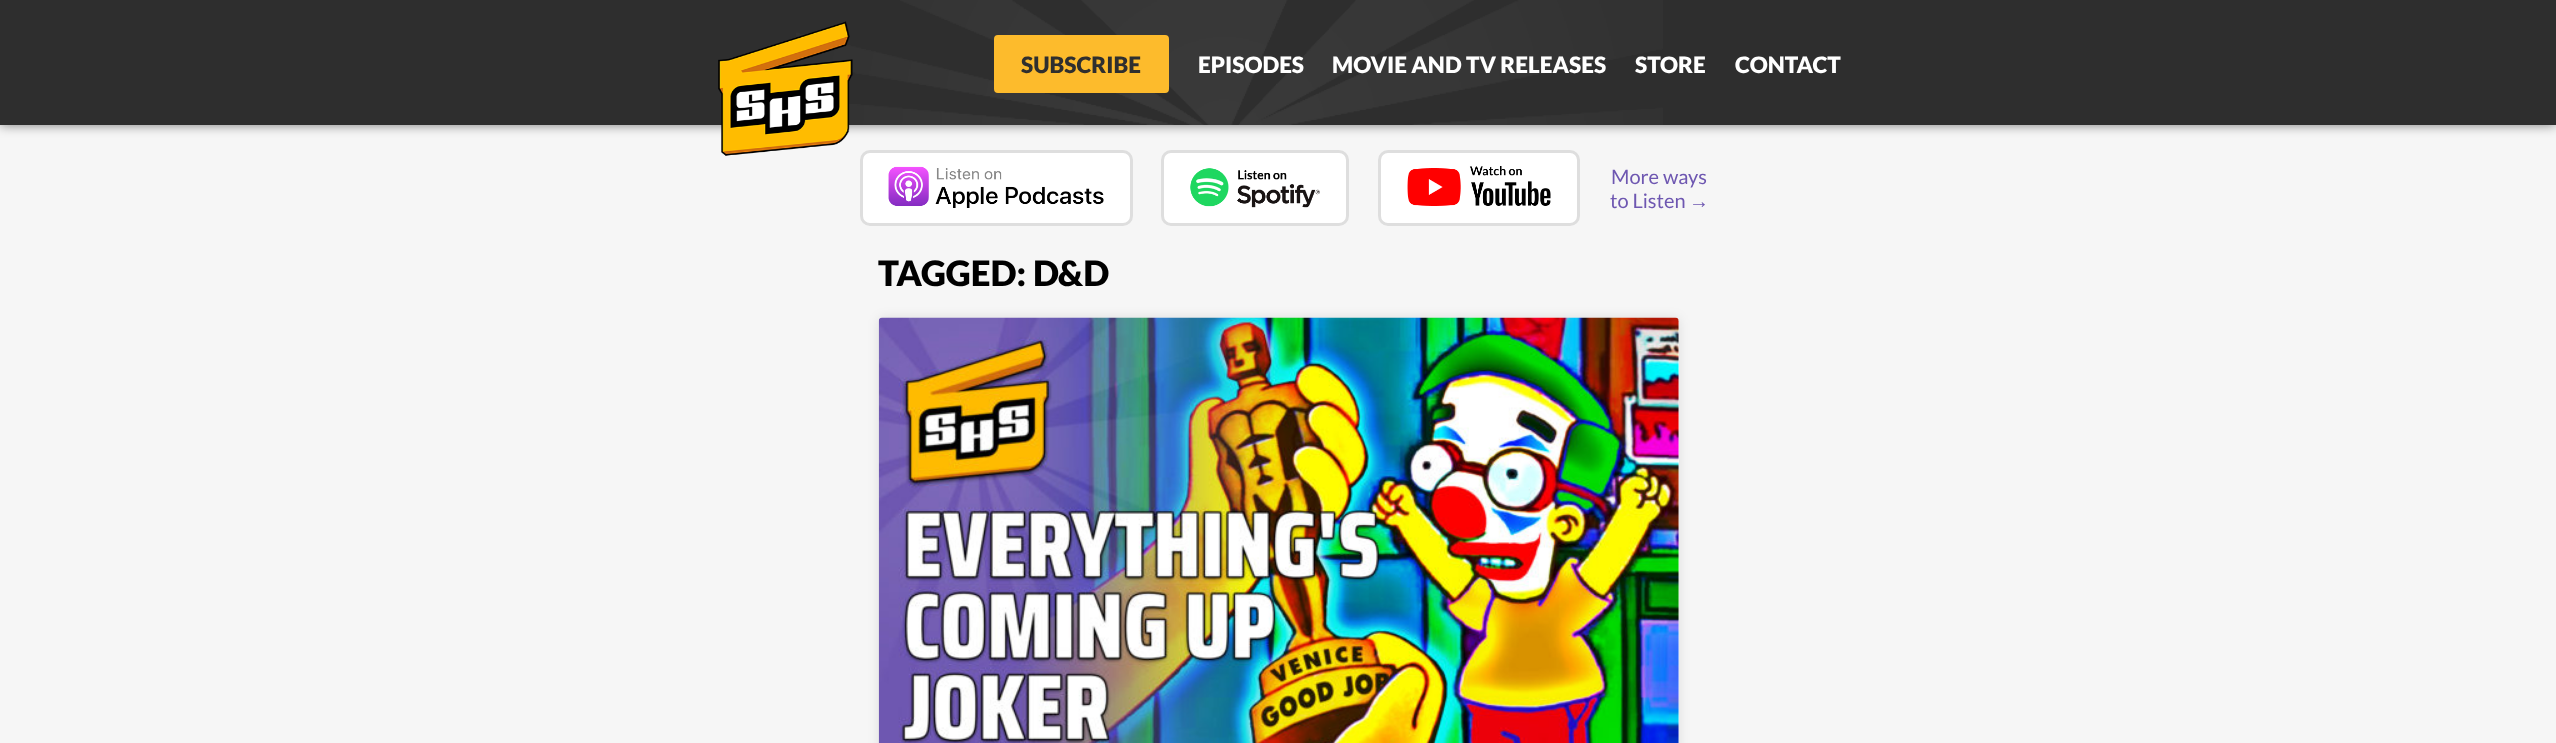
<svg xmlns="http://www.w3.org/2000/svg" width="2556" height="743">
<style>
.a{font:900 22.5px Lato;fill:#2f2f2f}
.b{font:900 22.5px Lato;fill:#fff}
.c{font:20px Lato;fill:#6e57b1}
.d{font:20px Liberation Sans;fill:#6e57b1}
.e{font:900 35px Lato;fill:#000}
</style>
<rect width="100%" height="100%" fill="#f6f6f6"/>
<path fill="#00000080" filter="blur(6px)" d="M0 0h2556v125H0z"/>
<path fill="#2e2e2e" d="M0 0h2556v125H0z"/>
<image href="1.png" x="796" y="0" width="867" height="125"/>
<image href="2.png" x="718" y="21" width="135" height="135"/>
<rect fill="#fdbb2c" stroke="#fdbb2c" stroke-width="3" x="995.5" y="36.5" width="172" height="55" rx="2.5"/>
<rect fill="#fff" stroke="#dedede" stroke-width="3" x="861.5" y="151.5" width="270" height="73" rx="8.5"/>
<image href="3.png" x="888" y="166" width="216" height="42"/>
<rect fill="#fff" stroke="#dedede" stroke-width="3" x="1162.5" y="151.5" width="185" height="73" rx="8.5"/>
<image href="4.png" x="1190" y="168" width="130" height="40"/>
<rect fill="#fff" stroke="#dedede" stroke-width="3" x="1379.5" y="151.5" width="199" height="73" rx="8.5"/>
<image href="5.png" x="1407" y="166" width="144" height="40"/>
<rect fill="#0000001a" filter="blur(6px)" x="879" y="318" width="800" height="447" rx="4"/>
<rect fill="#fff" x="879" y="318" width="800" height="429" rx="4"/>
<image href="6.png" x="878" y="317" width="801" height="426"/>
<text class="a" x="1021" y="73">SUBSCRIBE</text>
<text class="b" x="1198" y="73">EPISODES</text>
<text class="b" x="1332" y="73">MOVIE AND TV RELEASES</text>
<text class="b" x="1635" y="73">STORE</text>
<text class="b" x="1735" y="73">CONTACT</text>
<text class="c" x="1611" y="184">More ways</text>
<text class="c" x="1610" y="208">to Listen</text>
<text class="d" x="1689" y="208">→</text>
<text class="e" x="878" y="286">TAGGED: D&amp;D</text>
</svg>
